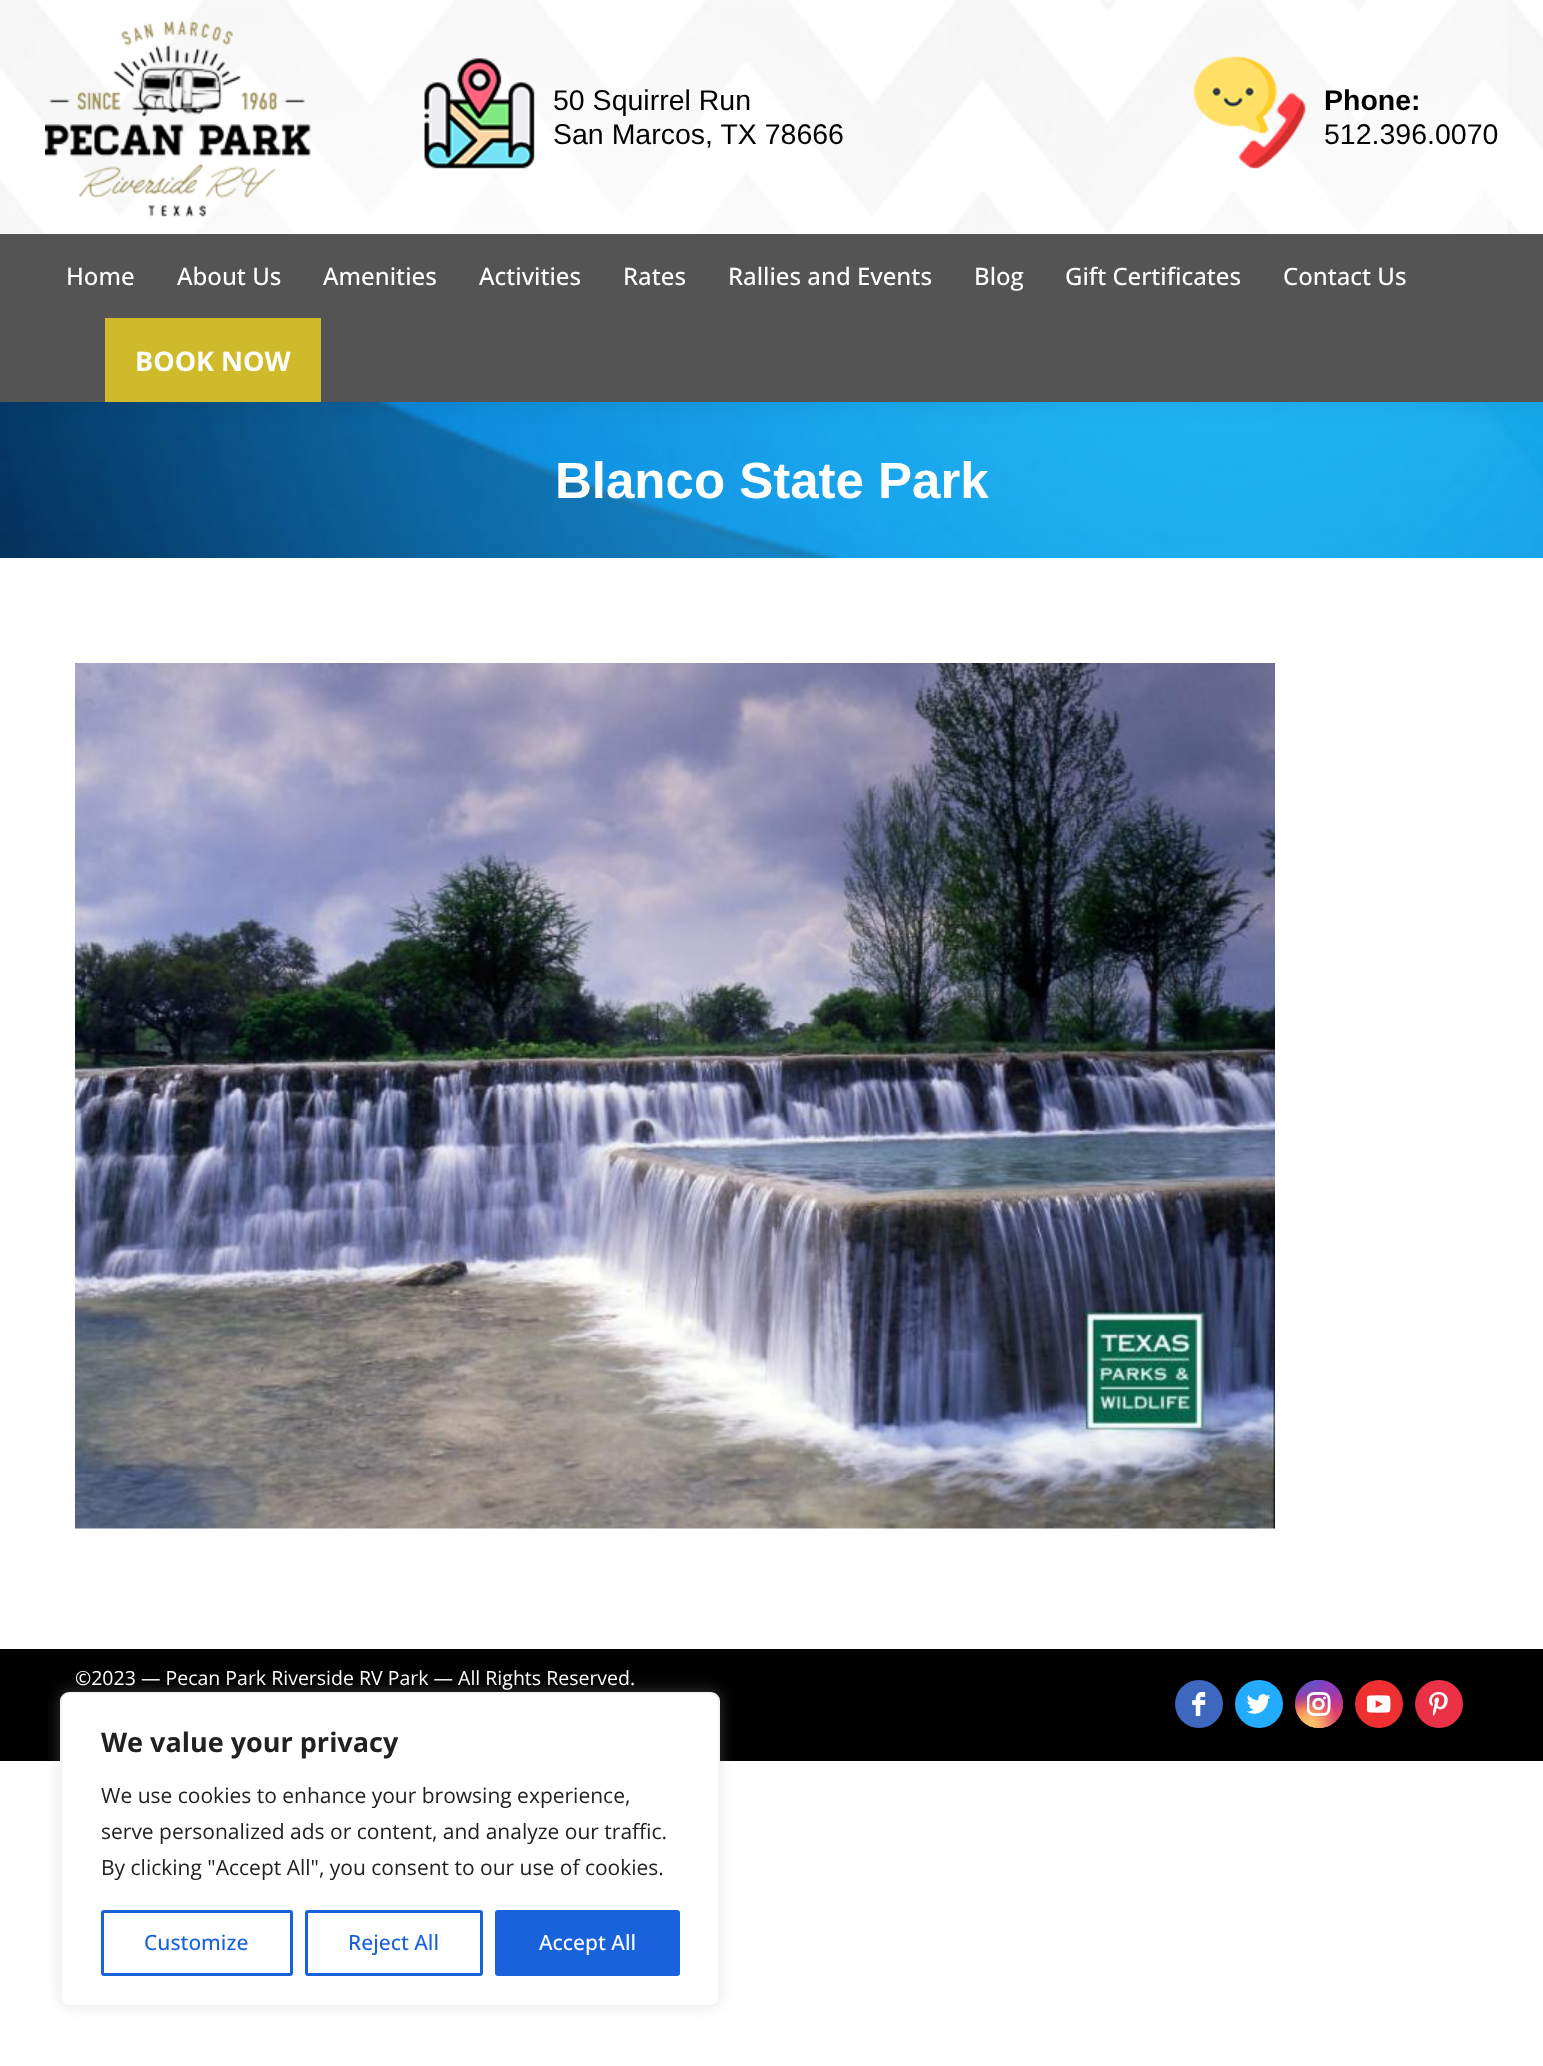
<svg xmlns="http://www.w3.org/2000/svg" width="1543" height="2066">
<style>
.a{font:28.5px Liberation Sans;fill:#000}
.b{font:bold 28.5px Liberation Sans;fill:#000}
.c{font:500 24px Open Sans;fill:#fff}
.d{font:bold 27px Open Sans;fill:#fff}
.e{font:bold 51px Liberation Sans;fill:#fff}
.f{font:19.5px Open Sans;fill:#fff}
.g{font:bold 27px Open Sans;fill:#212121}
.h{font:21px Open Sans;fill:#212121}
.i{font:500 21px Open Sans;fill:#1863dc}
.j{font:500 21px Open Sans;fill:#fff}
</style>
<defs>
<linearGradient id="g1" gradientUnits="userSpaceOnUse" x1="1319" y1="1680" x2="1319" y2="1728"><stop offset="0" stop-color="#6559ca"/><stop offset="0.3" stop-color="#bc318f"/><stop offset="0.5" stop-color="#e33f5f"/><stop offset="0.7" stop-color="#f77638"/><stop offset="1" stop-color="#fec66d"/></linearGradient>
<radialGradient id="g2" gradientUnits="userSpaceOnUse" cx="1343" cy="1728" r="68"><stop offset="0" stop-color="#d9317a"/><stop offset="1" stop-color="#d9317a" stop-opacity="0"/></radialGradient>
<radialGradient id="g3" gradientUnits="userSpaceOnUse" cx="0" cy="0" r="1" gradientTransform="matrix(41 0 0 81 1323 1670)"><stop offset="0" stop-color="#893dc2"/><stop offset="0.5" stop-color="#893dc2" stop-opacity="0"/></radialGradient>
<radialGradient id="g4" gradientUnits="userSpaceOnUse" cx="1343" cy="1680" r="68"><stop offset="0" stop-color="#893dc2"/><stop offset="0.5" stop-color="#893dc2" stop-opacity="0"/></radialGradient>
<radialGradient id="g5" gradientUnits="userSpaceOnUse" cx="0" cy="0" r="1" gradientTransform="matrix(54 0 0 102 1304 1656)"><stop offset="0" stop-color="#5258cf"/><stop offset="0.5" stop-color="#5258cf" stop-opacity="0"/></radialGradient>
<radialGradient id="g6" gradientUnits="userSpaceOnUse" cx="0" cy="0" r="1" gradientTransform="matrix(68 0 0 85 1295 1668)"><stop offset="0" stop-color="#5258cf"/><stop offset="0.5" stop-color="#5258cf" stop-opacity="0"/></radialGradient>
<radialGradient id="g7" gradientUnits="userSpaceOnUse" cx="1295" cy="1747" r="83"><stop offset="0" stop-color="#fec564"/><stop offset="0.5" stop-color="#fec564" stop-opacity="0"/></radialGradient>
<radialGradient id="g8" gradientUnits="userSpaceOnUse" cx="1311" cy="1723" r="53"><stop offset="0" stop-color="#fec564"/><stop offset="0.5" stop-color="#fec564" stop-opacity="0"/></radialGradient>
</defs>
<rect width="100%" height="100%" fill="#fff"/>
<image href="5.png" x="0" y="402" width="1543" height="156"/>
<path fill="#00000012" filter="blur(11px)" d="M-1 -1h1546v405H-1z"/>
<image href="1.png" x="0" y="0" width="1543" height="234"/>
<image href="2.png" x="45" y="20" width="266" height="197"/>
<image href="3.png" x="424" y="58" width="111" height="111"/>
<image href="4.png" x="1193" y="56" width="113" height="113"/>
<path fill="#545454" d="M0 234h1543v168H0z"/>
<path fill="#cfba2c" d="M105 318h216v84H105z"/>
<image href="6.png" x="75" y="663" width="1200" height="866"/>
<path fill="#000" d="M0 1649h1543v112H0z"/>
<circle fill="#3e68c0" cx="1199" cy="1704" r="24"/>
<image href="7.png" x="1192" y="1692" width="14" height="24"/>
<circle fill="#23abff" cx="1259" cy="1704" r="24"/>
<image href="8.png" x="1247" y="1694" width="24" height="20"/>
<circle fill="url(#g1)" cx="1319" cy="1704" r="24"/>
<circle fill="url(#g2)" cx="1319" cy="1704" r="24"/>
<circle fill="url(#g3)" cx="1319" cy="1704" r="24"/>
<circle fill="url(#g4)" cx="1319" cy="1704" r="24"/>
<circle fill="url(#g5)" cx="1319" cy="1704" r="24"/>
<circle fill="url(#g6)" cx="1319" cy="1704" r="24"/>
<circle fill="url(#g7)" cx="1319" cy="1704" r="24"/>
<circle fill="url(#g8)" cx="1319" cy="1704" r="24"/>
<image href="9.png" x="1307" y="1692" width="24" height="24"/>
<circle fill="#ee3130" cx="1379" cy="1704" r="24"/>
<image href="10.png" x="1367" y="1695" width="24" height="18"/>
<circle fill="#ea3145" cx="1439" cy="1704" r="24"/>
<image href="11.png" x="1429" y="1692" width="19" height="24"/>
<rect fill="#acabab4d" filter="blur(7.5px)" x="60" y="1691" width="660" height="315" rx="9"/>
<rect fill="#fff" stroke="#f4f4f4" stroke-width="2" x="61" y="1693" width="658" height="313" rx="8"/>
<rect fill="none" stroke="#1863dc" stroke-width="3" x="102.5" y="1911.5" width="189" height="63" rx="1.5"/>
<rect fill="none" stroke="#1863dc" stroke-width="3" x="306.5" y="1911.5" width="175" height="63" rx="1.5"/>
<rect fill="#1863dc" stroke="#1863dc" stroke-width="3" x="496.5" y="1911.5" width="182" height="63" rx="1.5"/>
<text class="a" x="553" y="110">50 Squirrel Run</text>
<text class="a" x="553" y="144">San Marcos, TX 78666</text>
<text class="b" x="1324" y="110">Phone:</text>
<text class="a" x="1324" y="144">512.396.0070</text>
<text class="c" x="66" y="285">Home</text>
<text class="c" x="177" y="285">About Us</text>
<text class="c" x="323" y="285">Amenities</text>
<text class="c" x="479" y="285">Activities</text>
<text class="c" x="623" y="285">Rates</text>
<text class="c" x="728" y="285">Rallies and Events</text>
<text class="c" x="974" y="285">Blog</text>
<text class="c" x="1065" y="285">Gift Certificates</text>
<text class="c" x="1283" y="285">Contact Us</text>
<text class="d" x="135" y="371">BOOK NOW</text>
<text class="e" x="555" y="498">Blanco State Park</text>
<text class="f" x="75" y="1685">©2023 — Pecan Park Riverside RV Park — All Rights Reserved.</text>
<text class="g" x="101" y="1752">We value your privacy</text>
<text class="h" x="101" y="1803">We use cookies to enhance your browsing experience,</text>
<text class="h" x="101" y="1839">serve personalized ads or content, and analyze our traffic.</text>
<text class="h" x="101" y="1875">By clicking "Accept All", you consent to our use of cookies.</text>
<text class="i" x="144" y="1950">Customize</text>
<text class="i" x="348" y="1950">Reject All</text>
<text class="j" x="539" y="1950">Accept All</text>
</svg>
